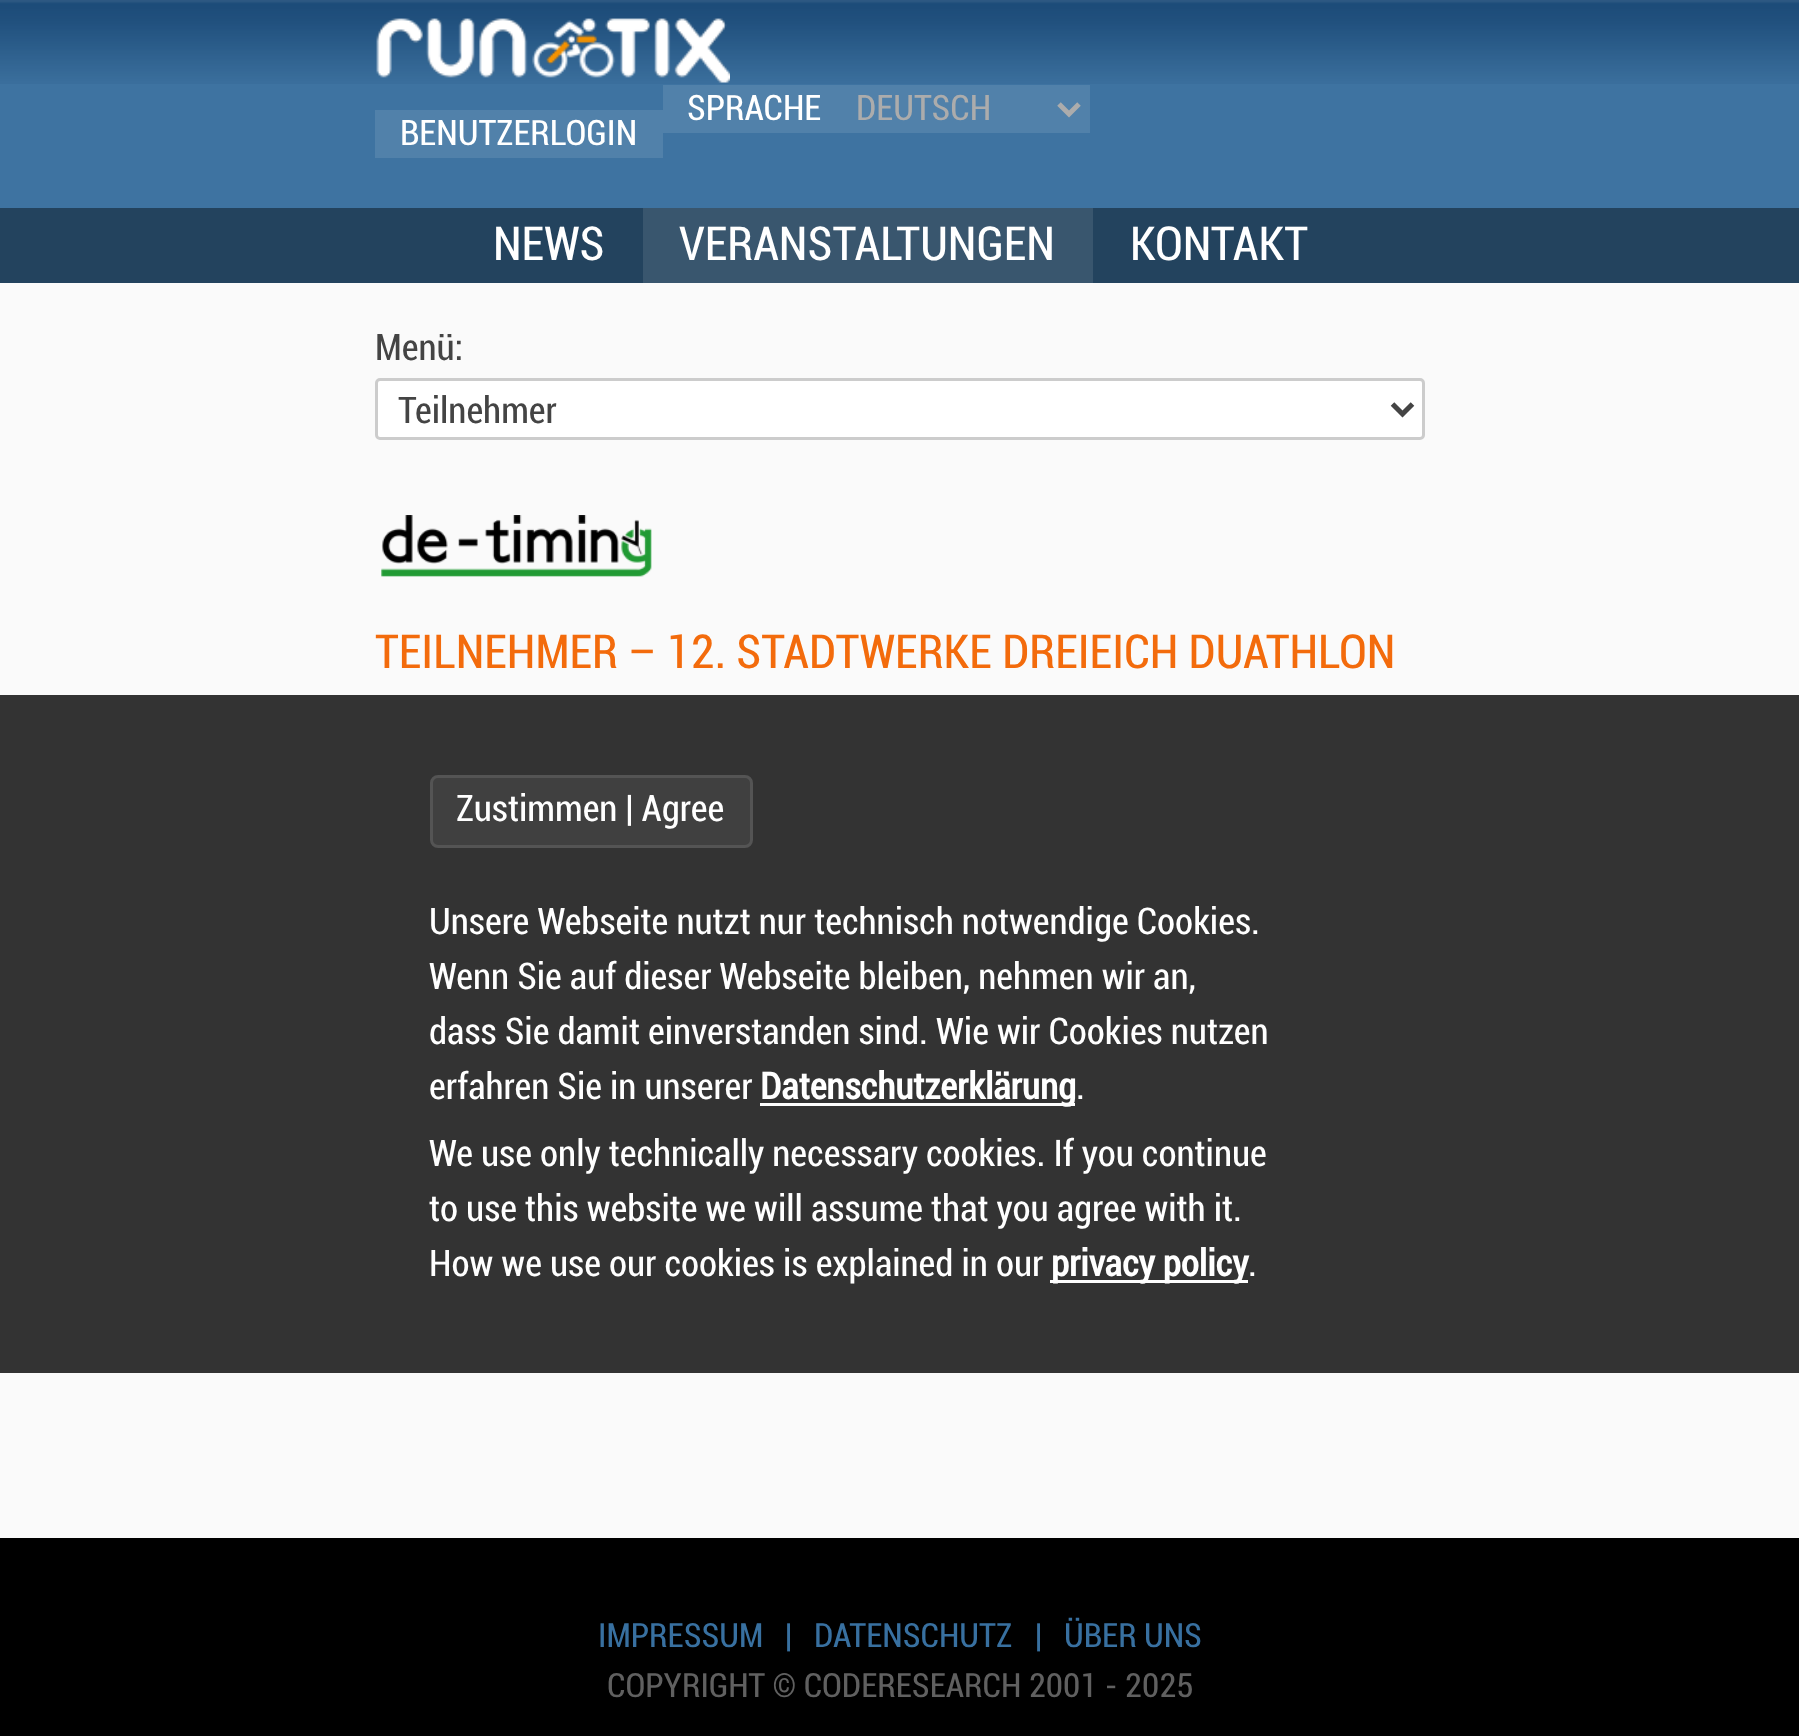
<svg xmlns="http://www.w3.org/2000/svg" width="1799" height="1736">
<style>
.a{font:35px Roboto;fill:#fff}
.b{font:35px Roboto;fill:#acacac}
.c{font:46.7px Roboto;fill:#fff}
.d{font:36.7px Roboto;fill:#444}
.e{font:46.7px Roboto;fill:#f36b0c}
.f{font:33.3px Roboto;fill:#3870a0}
.g{font:33.3px Roboto;fill:#606060}
.h{font:36.7px Roboto;fill:#fff}
.i{font:bold 36.7px Roboto;fill:#fff}
</style>
<rect width="100%" height="100%" fill="#fafafa"/>
<path fill="#3e73a1" d="M0 84h1799v124H0z"/>
<image href="1.png" x="0" y="0" width="1799" height="84"/>
<image href="2.png" x="376" y="18" width="354" height="65"/>
<path fill="#5181aa" d="M663 85h427v48H663z"/>
<path fill="none" stroke="#acacac" stroke-width="5" d="M1059 104l10 10l10-10"/>
<path fill="#5181aa" d="M375 110h288v48H375z"/>
<path fill="#23435e" d="M0 208h1799v75H0z"/>
<path fill="#39566e" d="M643 208h450v75H643z"/>
<rect fill="#fff" stroke="#ccc" stroke-width="3" x="376.5" y="379.5" width="1047" height="59" rx="3.5"/>
<path fill="none" stroke="#444" stroke-width="5" d="M1392.5 404l10 10l10-10"/>
<image href="3.png" x="381" y="515" width="271" height="62"/>
<path fill="#000" d="M0 1538h1799v198H0z"/>
<path fill="#333" d="M0 695h1799v678H0z"/>
<rect fill="#404040" stroke="#545454" stroke-width="3" x="431.5" y="776.5" width="320" height="70" rx="6.5"/>
<path fill="#fff" d="M760 1103h315v3H760z"/>
<path fill="#fff" d="M1050 1280h198v3H1050z"/>
<text class="a" x="687" y="120">SPRACHE</text>
<text class="b" x="856" y="120">DEUTSCH</text>
<text class="a" x="400" y="145">BENUTZERLOGIN</text>
<text class="c" x="493" y="260">NEWS</text>
<text class="c" x="679" y="260">VERANSTALTUNGEN</text>
<text class="c" x="1130" y="260">KONTAKT</text>
<text class="d" x="375" y="360">Menü:</text>
<text class="d" x="398" y="423">Teilnehmer</text>
<text class="e" x="375" y="668">TEILNEHMER – 12. STADTWERKE DREIEICH DUATHLON</text>
<text class="f" x="598" y="1647">IMPRESSUM</text>
<text class="f" x="785" y="1647">|</text>
<text class="f" x="814" y="1647">DATENSCHUTZ</text>
<text class="f" x="1035" y="1647">|</text>
<text class="f" x="1064" y="1647">ÜBER UNS</text>
<text class="g" x="607" y="1697">COPYRIGHT © CODERESEARCH 2001 - 2025</text>
<text class="h" x="456" y="821">Zustimmen | Agree</text>
<text class="h" x="429" y="934">Unsere Webseite nutzt nur technisch notwendige Cookies.</text>
<text class="h" x="429" y="989">Wenn Sie auf dieser Webseite bleiben, nehmen wir an,</text>
<text class="h" x="429" y="1044">dass Sie damit einverstanden sind. Wie wir Cookies nutzen</text>
<text class="h" x="429" y="1099">erfahren Sie in unserer</text>
<text class="i" x="760" y="1099">Datenschutzerklärung</text>
<text class="h" x="1076" y="1099">.</text>
<text class="h" x="429" y="1166">We use only technically necessary cookies. If you continue</text>
<text class="h" x="429" y="1221">to use this website we will assume that you agree with it.</text>
<text class="h" x="429" y="1276">How we use our cookies is explained in our</text>
<text class="i" x="1051" y="1276">privacy policy</text>
<text class="h" x="1248" y="1276">.</text>
</svg>
